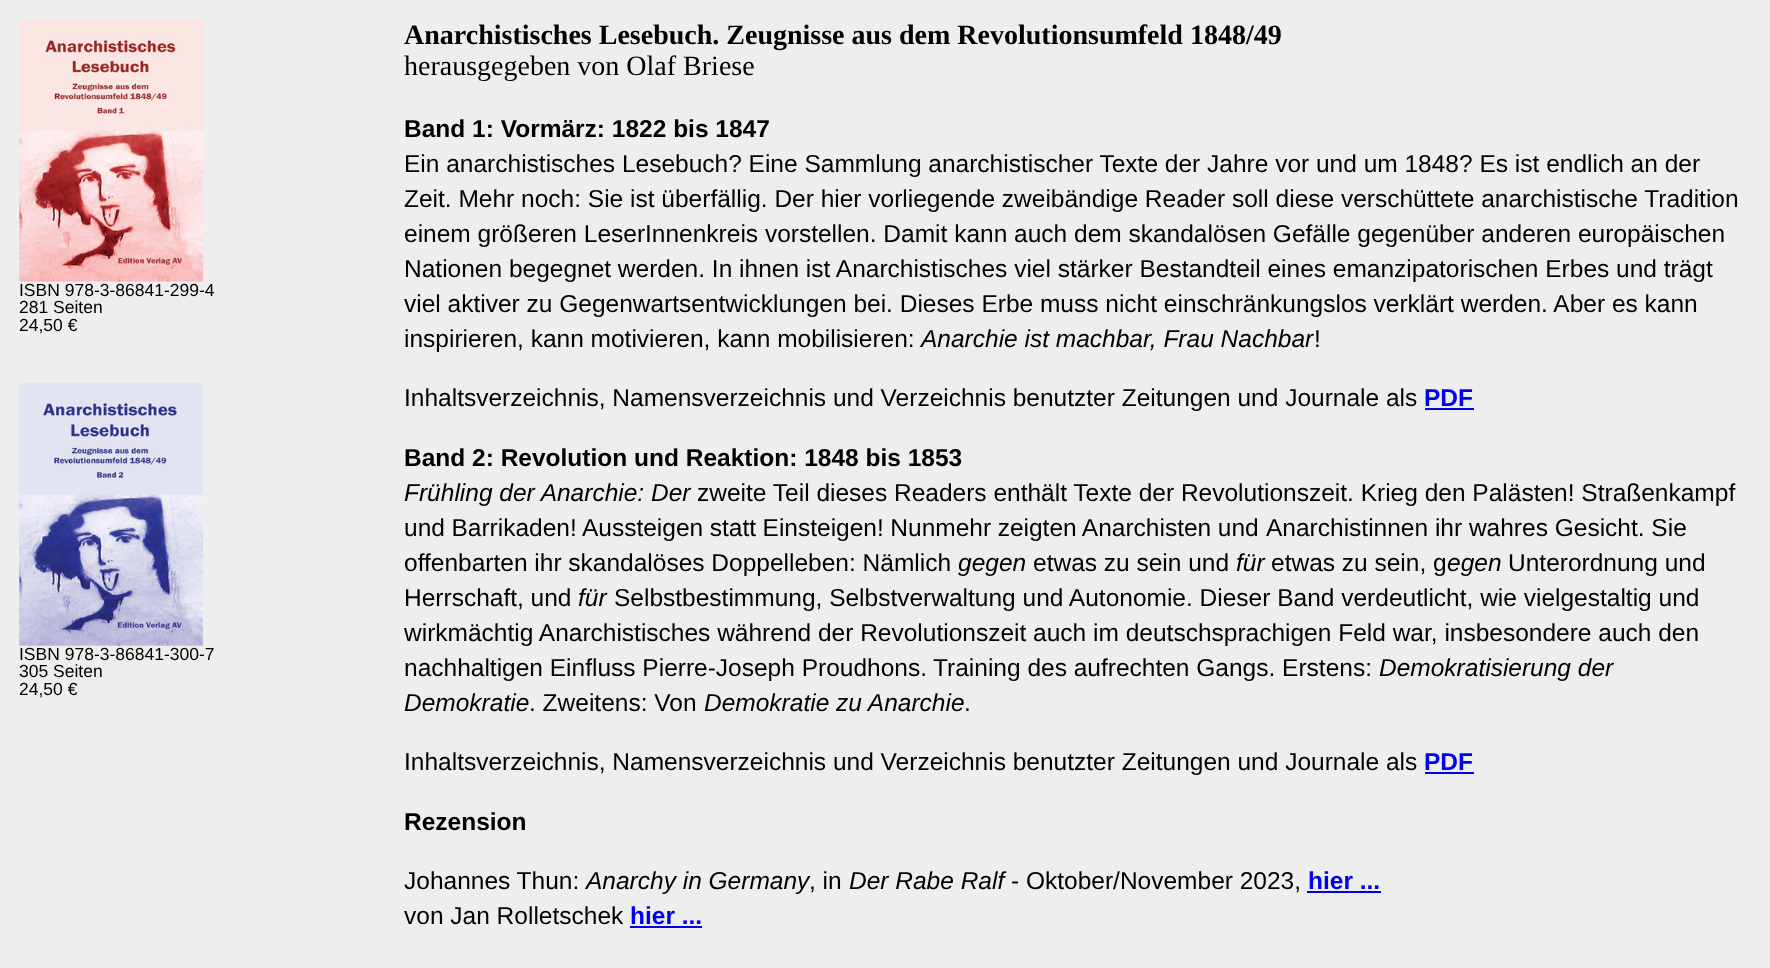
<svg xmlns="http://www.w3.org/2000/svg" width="1770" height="968">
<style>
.a{font:17.5px Liberation Sans;fill:#000}
.b{font:bold 28px Liberation Serif;fill:#000}
.c{font:28px Liberation Serif;fill:#000}
.d{font:bold 24.5px Liberation Sans;fill:#000}
.e{font:24.5px Liberation Sans;fill:#000}
.f{font:italic 24.5px Liberation Sans;fill:#000}
.g{font:bold 24.5px Liberation Sans;fill:#00e}
</style>
<rect width="100%" height="100%" fill="#eee"/>
<image href="1.png" x="19" y="19" width="184" height="263"/>
<image href="2.png" x="19" y="383" width="184" height="263"/>
<path fill="#00e" d="M1425 408h49v2H1425z"/>
<path fill="#00e" d="M1425 772h49v2H1425z"/>
<path fill="#00e" d="M1307 891h74v2H1307z"/>
<path fill="#00e" d="M630 926h72v2H630z"/>
<text class="a" x="19" y="296">ISBN 978-3-86841-299-4</text>
<text class="a" x="19" y="313">281 Seiten</text>
<text class="a" x="19" y="331">24,50 €</text>
<text class="a" x="19" y="660">ISBN 978-3-86841-300-7</text>
<text class="a" x="19" y="677">305 Seiten</text>
<text class="a" x="19" y="695">24,50 €</text>
<text class="b" x="404" y="44">Anarchistisches Lesebuch. Zeugnisse aus dem Revolutionsumfeld 1848/49</text>
<text class="c" x="404" y="75">herausgegeben von Olaf Briese</text>
<text class="d" x="404" y="137">Band 1: Vormärz: 1822 bis 1847</text>
<text class="e" x="404" y="172">Ein anarchistisches Lesebuch? Eine Sammlung anarchistischer Texte der Jahre vor und um 1848? Es ist endlich an der</text>
<text class="e" x="404" y="207">Zeit. Mehr noch: Sie ist überfällig. Der hier vorliegende zweibändige Reader soll diese verschüttete anarchistische Tradition</text>
<text class="e" x="404" y="242">einem größeren LeserInnenkreis vorstellen. Damit kann auch dem skandalösen Gefälle gegenüber anderen europäischen</text>
<text class="e" x="404" y="277">Nationen begegnet werden. In ihnen ist Anarchistisches viel stärker Bestandteil eines emanzipatorischen Erbes und trägt</text>
<text class="e" x="404" y="312">viel aktiver zu Gegenwartsentwicklungen bei. Dieses Erbe muss nicht einschränkungslos verklärt werden. Aber es kann</text>
<text class="e" x="404" y="347">inspirieren, kann motivieren, kann mobilisieren:</text>
<text class="f" x="921" y="347">Anarchie ist machbar, Frau Nachbar</text>
<text class="e" x="1314" y="347">!</text>
<text class="e" x="404" y="406">Inhaltsverzeichnis, Namensverzeichnis und Verzeichnis benutzter Zeitungen und Journale als</text>
<text class="g" x="1424" y="406">PDF</text>
<text class="d" x="404" y="466">Band 2: Revolution und Reaktion: 1848 bis 1853</text>
<text class="f" x="404" y="501">Frühling der Anarchie: Der</text>
<text class="e" x="697" y="501">zweite Teil dieses Readers enthält Texte der Revolutionszeit. Krieg den Palästen! Straßenkampf</text>
<text class="e" x="404" y="536" word-spacing="-0.25">und Barrikaden! Aussteigen statt Einsteigen! Nunmehr zeigten Anarchisten und</text>
<text class="e" x="1266" y="536">Anarchistinnen ihr wahres Gesicht. Sie</text>
<text class="e" x="404" y="571">offenbarten ihr skandalöses Doppelleben: Nämlich</text>
<text class="f" x="958" y="571">gegen</text>
<text class="e" x="1033" y="571">etwas zu sein und</text>
<text class="f" x="1236" y="571">für</text>
<text class="e" x="1271" y="571">etwas zu sein, g</text>
<text class="f" x="1447" y="571">egen</text>
<text class="e" x="1508" y="571">Unterordnung und</text>
<text class="e" x="404" y="606">Herrschaft, und</text>
<text class="f" x="578" y="606">für</text>
<text class="e" x="614" y="606">Selbstbestimmung, Selbstverwaltung und Autonomie. Dieser Band verdeutlicht, wie vielgestaltig und</text>
<text class="e" x="404" y="641">wirkmächtig Anarchistisches während der Revolutionszeit auch im deutschsprachigen Feld war, insbesondere auch den</text>
<text class="e" x="404" y="676">nachhaltigen Einfluss Pierre-Joseph Proudhons.</text>
<text class="e" x="933" y="676">Training des aufrechten Gangs. Erstens:</text>
<text class="f" x="1379" y="676">Demokratisierung der</text>
<text class="f" x="404" y="711">Demokratie</text>
<text class="e" x="529" y="711">. Zweitens: Von</text>
<text class="f" x="704" y="711">Demokratie zu Anarchie</text>
<text class="e" x="964" y="711">.</text>
<text class="e" x="404" y="770">Inhaltsverzeichnis, Namensverzeichnis und Verzeichnis benutzter Zeitungen und Journale als</text>
<text class="g" x="1424" y="770">PDF</text>
<text class="d" x="404" y="830">Rezension</text>
<text class="e" x="404" y="889">Johannes Thun:</text>
<text class="f" x="586" y="889">Anarchy in Germany</text>
<text class="e" x="809" y="889">, in</text>
<text class="f" x="849" y="889">Der Rabe Ralf</text>
<text class="e" x="1011" y="889">- Oktober/November 2023,</text>
<text class="g" x="1308" y="889">hier ...</text>
<text class="e" x="404" y="924">von Jan Rolletschek</text>
<text class="g" x="630" y="924">hier ...</text>
</svg>
